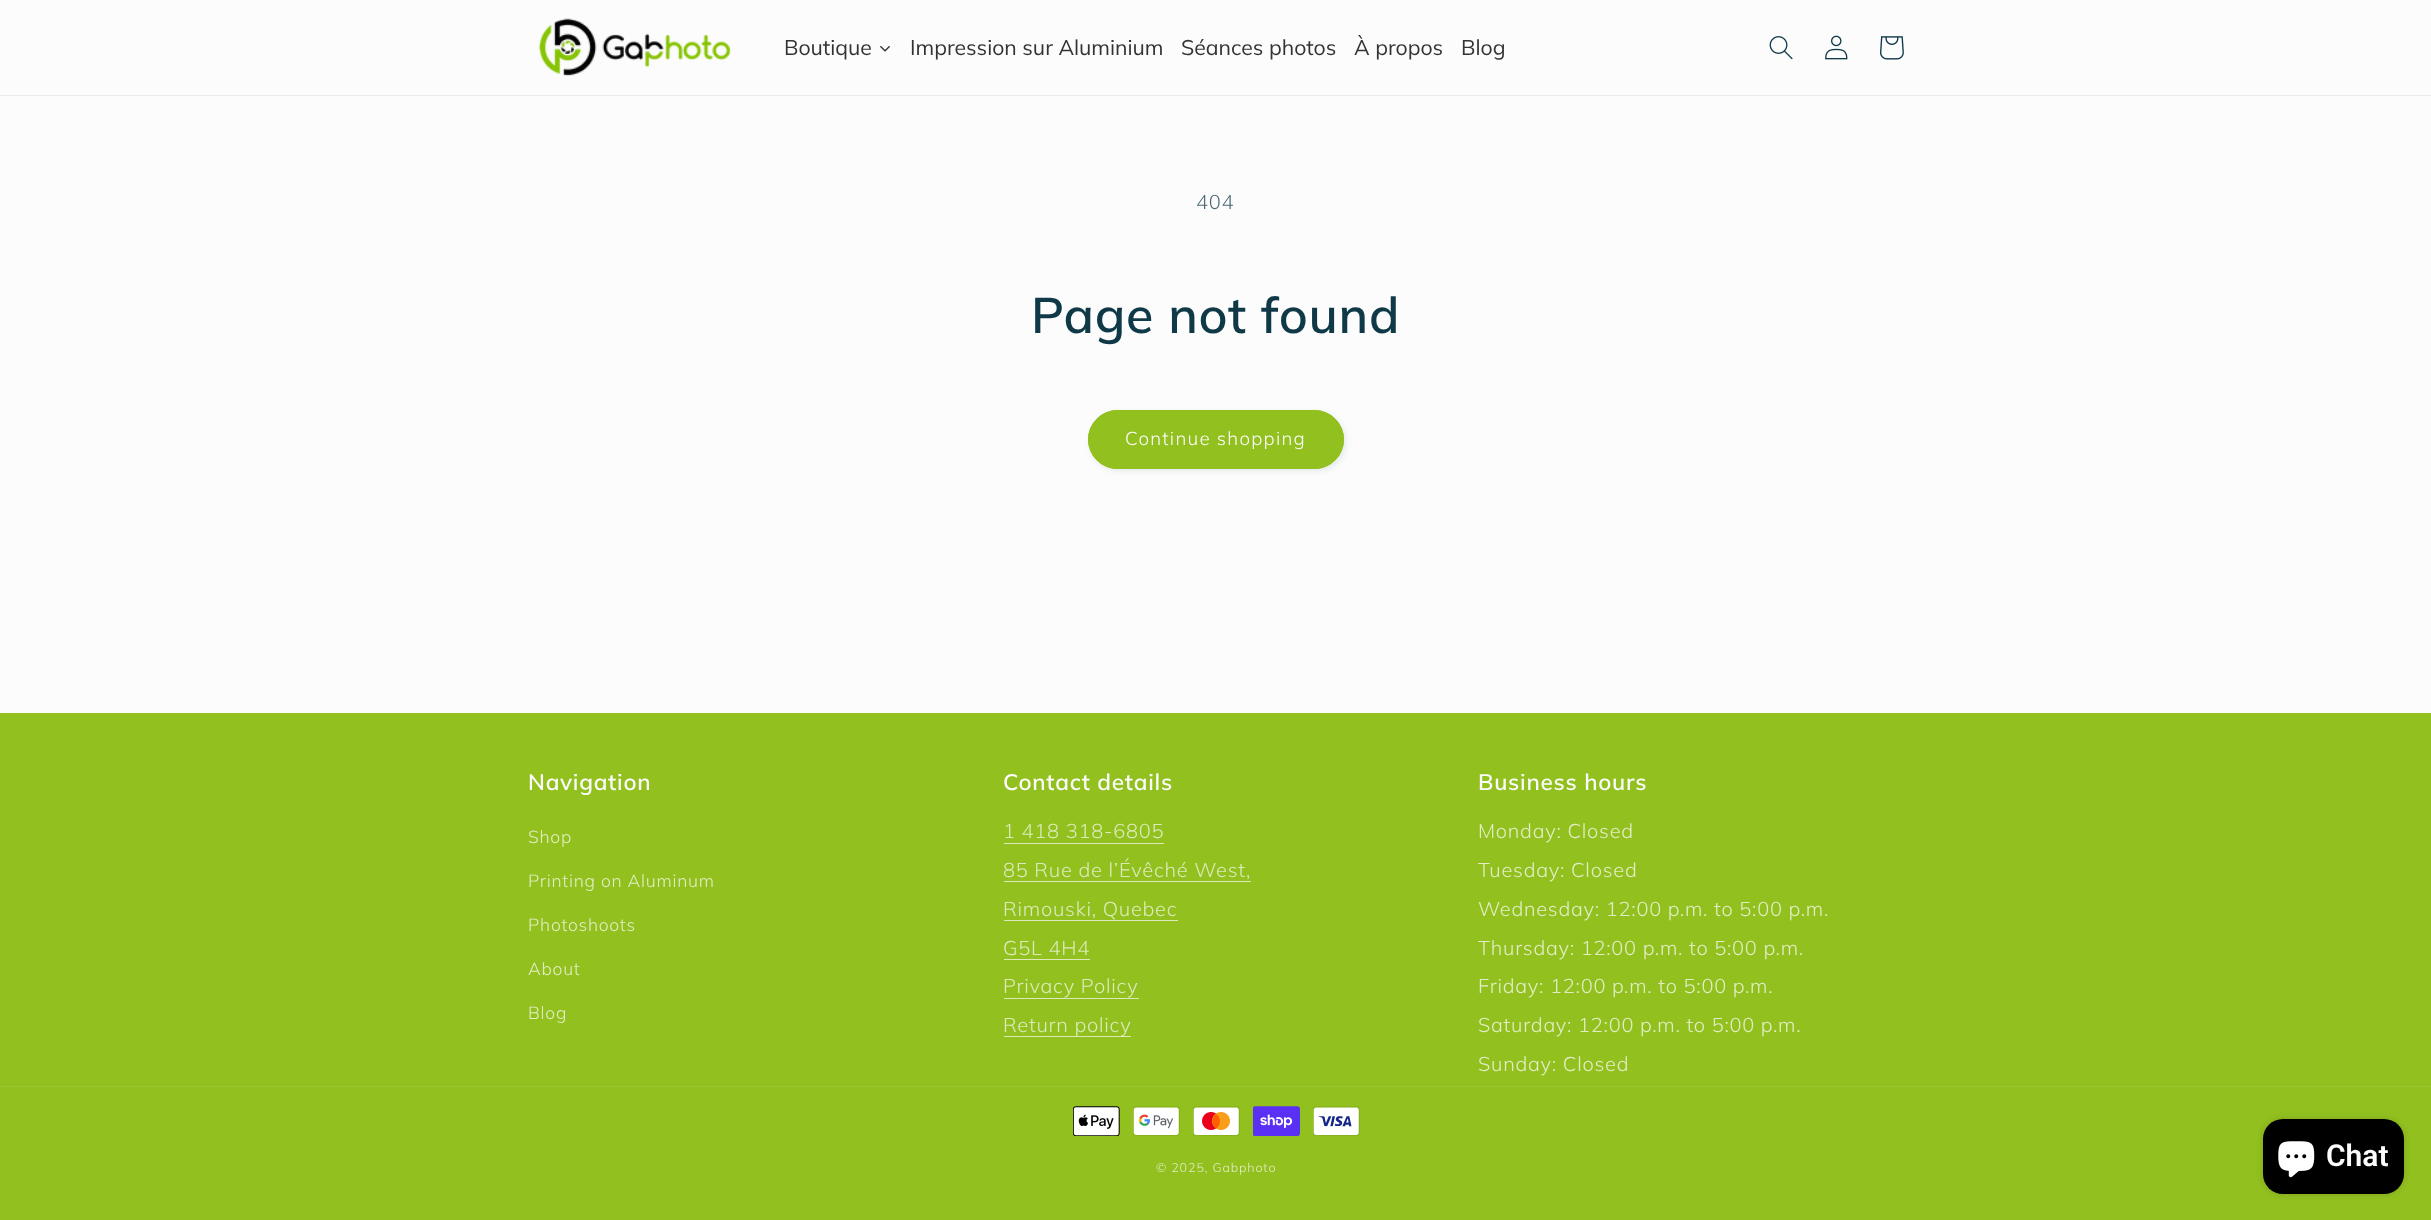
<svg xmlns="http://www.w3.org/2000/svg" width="2431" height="1220">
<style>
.a{font:200 21.25px Mulish;fill:#333}
.b{font:300 20px Muli;letter-spacing:0.75px;fill:#4b6a75}
.c{font:600 50px Muli;letter-spacing:0.75px;fill:#103948}
.d{font:300 18.75px Muli;letter-spacing:1.25px;fill:#fcfcfc}
.e{font:600 22.5px Muli;letter-spacing:0.75px;fill:#fcfcfc}
.f{font:300 17.5px Muli;letter-spacing:0.75px;fill:#e2edc5}
.g{font:300 20px Muli;letter-spacing:0.75px;fill:#dceaba}
.h{font:300 20px Muli;letter-spacing:0.75px;fill:#e2edc5}
.i{font:300 12.5px Muli;letter-spacing:0.9px;fill:#e2edc5}
.j{font:600 30px Roboto;fill:#fcfcfc}
</style>
<rect width="100%" height="100%" fill="#fcfcfc"/>
<path fill="#e9ecee" d="M0 95h2431v1H0z"/>
<image href="1.png" x="538" y="18" width="193" height="58"/>
<image href="2.png" x="880" y="46" width="10" height="6"/>
<image href="3.png" x="1769" y="36" width="24" height="24"/>
<image href="4.png" x="1825" y="35" width="23" height="25"/>
<image href="5.png" x="1880" y="36" width="24" height="24"/>
<rect fill="#1039481a" filter="blur(3px)" x="1090" y="413" width="256" height="58" rx="29"/>
<rect fill="#92c01f" x="1088" y="410" width="256" height="59" rx="29.5"/>
<rect fill="none" stroke="#92c01f" x="1088.5" y="410.5" width="255" height="58" rx="29"/>
<path fill="#92c01f" d="M0 713h2431v507H0z"/>
<path fill="#dceaba" d="M1004 843h160v1H1004z"/>
<path fill="#dceaba" d="M1004 881h247v1H1004z"/>
<path fill="#dceaba" d="M1004 920h174v1H1004z"/>
<path fill="#dceaba" d="M1004 959h86v1H1004z"/>
<path fill="#dceaba" d="M1004 998h135v1H1004z"/>
<path fill="#dceaba" d="M1004 1036h127v1H1004z"/>
<path fill="#9ac531" d="M0 1086h2431v1H0z"/>
<image href="6.png" x="1073" y="1106" width="47" height="30"/>
<image href="7.png" x="1133" y="1106" width="47" height="30"/>
<image href="8.png" x="1193" y="1106" width="47" height="30"/>
<image href="9.png" x="1253" y="1106" width="47" height="30"/>
<image href="10.png" x="1313" y="1106" width="47" height="30"/>
<rect fill="#00000026" filter="blur(3px)" x="2263" y="1119" width="141" height="75" rx="20"/>
<rect fill="#000" x="2263" y="1119" width="141" height="75" rx="20"/>
<image href="11.png" x="2278" y="1141" width="37" height="37"/>
<text class="a" x="784" y="55">Boutique</text>
<text class="a" x="910" y="55">Impression sur Aluminium</text>
<text class="a" x="1181" y="55">Séances photos</text>
<text class="a" x="1354" y="55">À propos</text>
<text class="a" x="1461" y="55">Blog</text>
<text class="b" x="1196" y="209">404</text>
<text class="c" x="1031" y="333">Page not found</text>
<text class="d" x="1125" y="445">Continue shopping</text>
<text class="e" x="528" y="790">Navigation</text>
<text class="f" x="528" y="843">Shop</text>
<text class="f" x="528" y="887">Printing on Aluminum</text>
<text class="f" x="528" y="931">Photoshoots</text>
<text class="f" x="528" y="975">About</text>
<text class="f" x="528" y="1019">Blog</text>
<text class="e" x="1003" y="790">Contact details</text>
<text class="g" x="1003" y="838">1 418 318-6805</text>
<text class="g" x="1003" y="877">85 Rue de l’Évêché West,</text>
<text class="g" x="1003" y="916">Rimouski, Quebec</text>
<text class="g" x="1003" y="955">G5L 4H4</text>
<text class="g" x="1003" y="993">Privacy Policy</text>
<text class="g" x="1003" y="1032">Return policy</text>
<text class="e" x="1478" y="790">Business hours</text>
<text class="h" x="1478" y="838">Monday: Closed</text>
<text class="h" x="1478" y="877">Tuesday: Closed</text>
<text class="h" x="1478" y="916">Wednesday: 12:00 p.m. to 5:00 p.m.</text>
<text class="h" x="1478" y="955">Thursday: 12:00 p.m. to 5:00 p.m.</text>
<text class="h" x="1478" y="993">Friday: 12:00 p.m. to 5:00 p.m.</text>
<text class="h" x="1478" y="1032">Saturday: 12:00 p.m. to 5:00 p.m.</text>
<text class="h" x="1478" y="1071">Sunday: Closed</text>
<text class="i" x="1156" y="1172">© 2025, Gabphoto</text>
<text class="j" x="2326" y="1166">Chat</text>
</svg>
